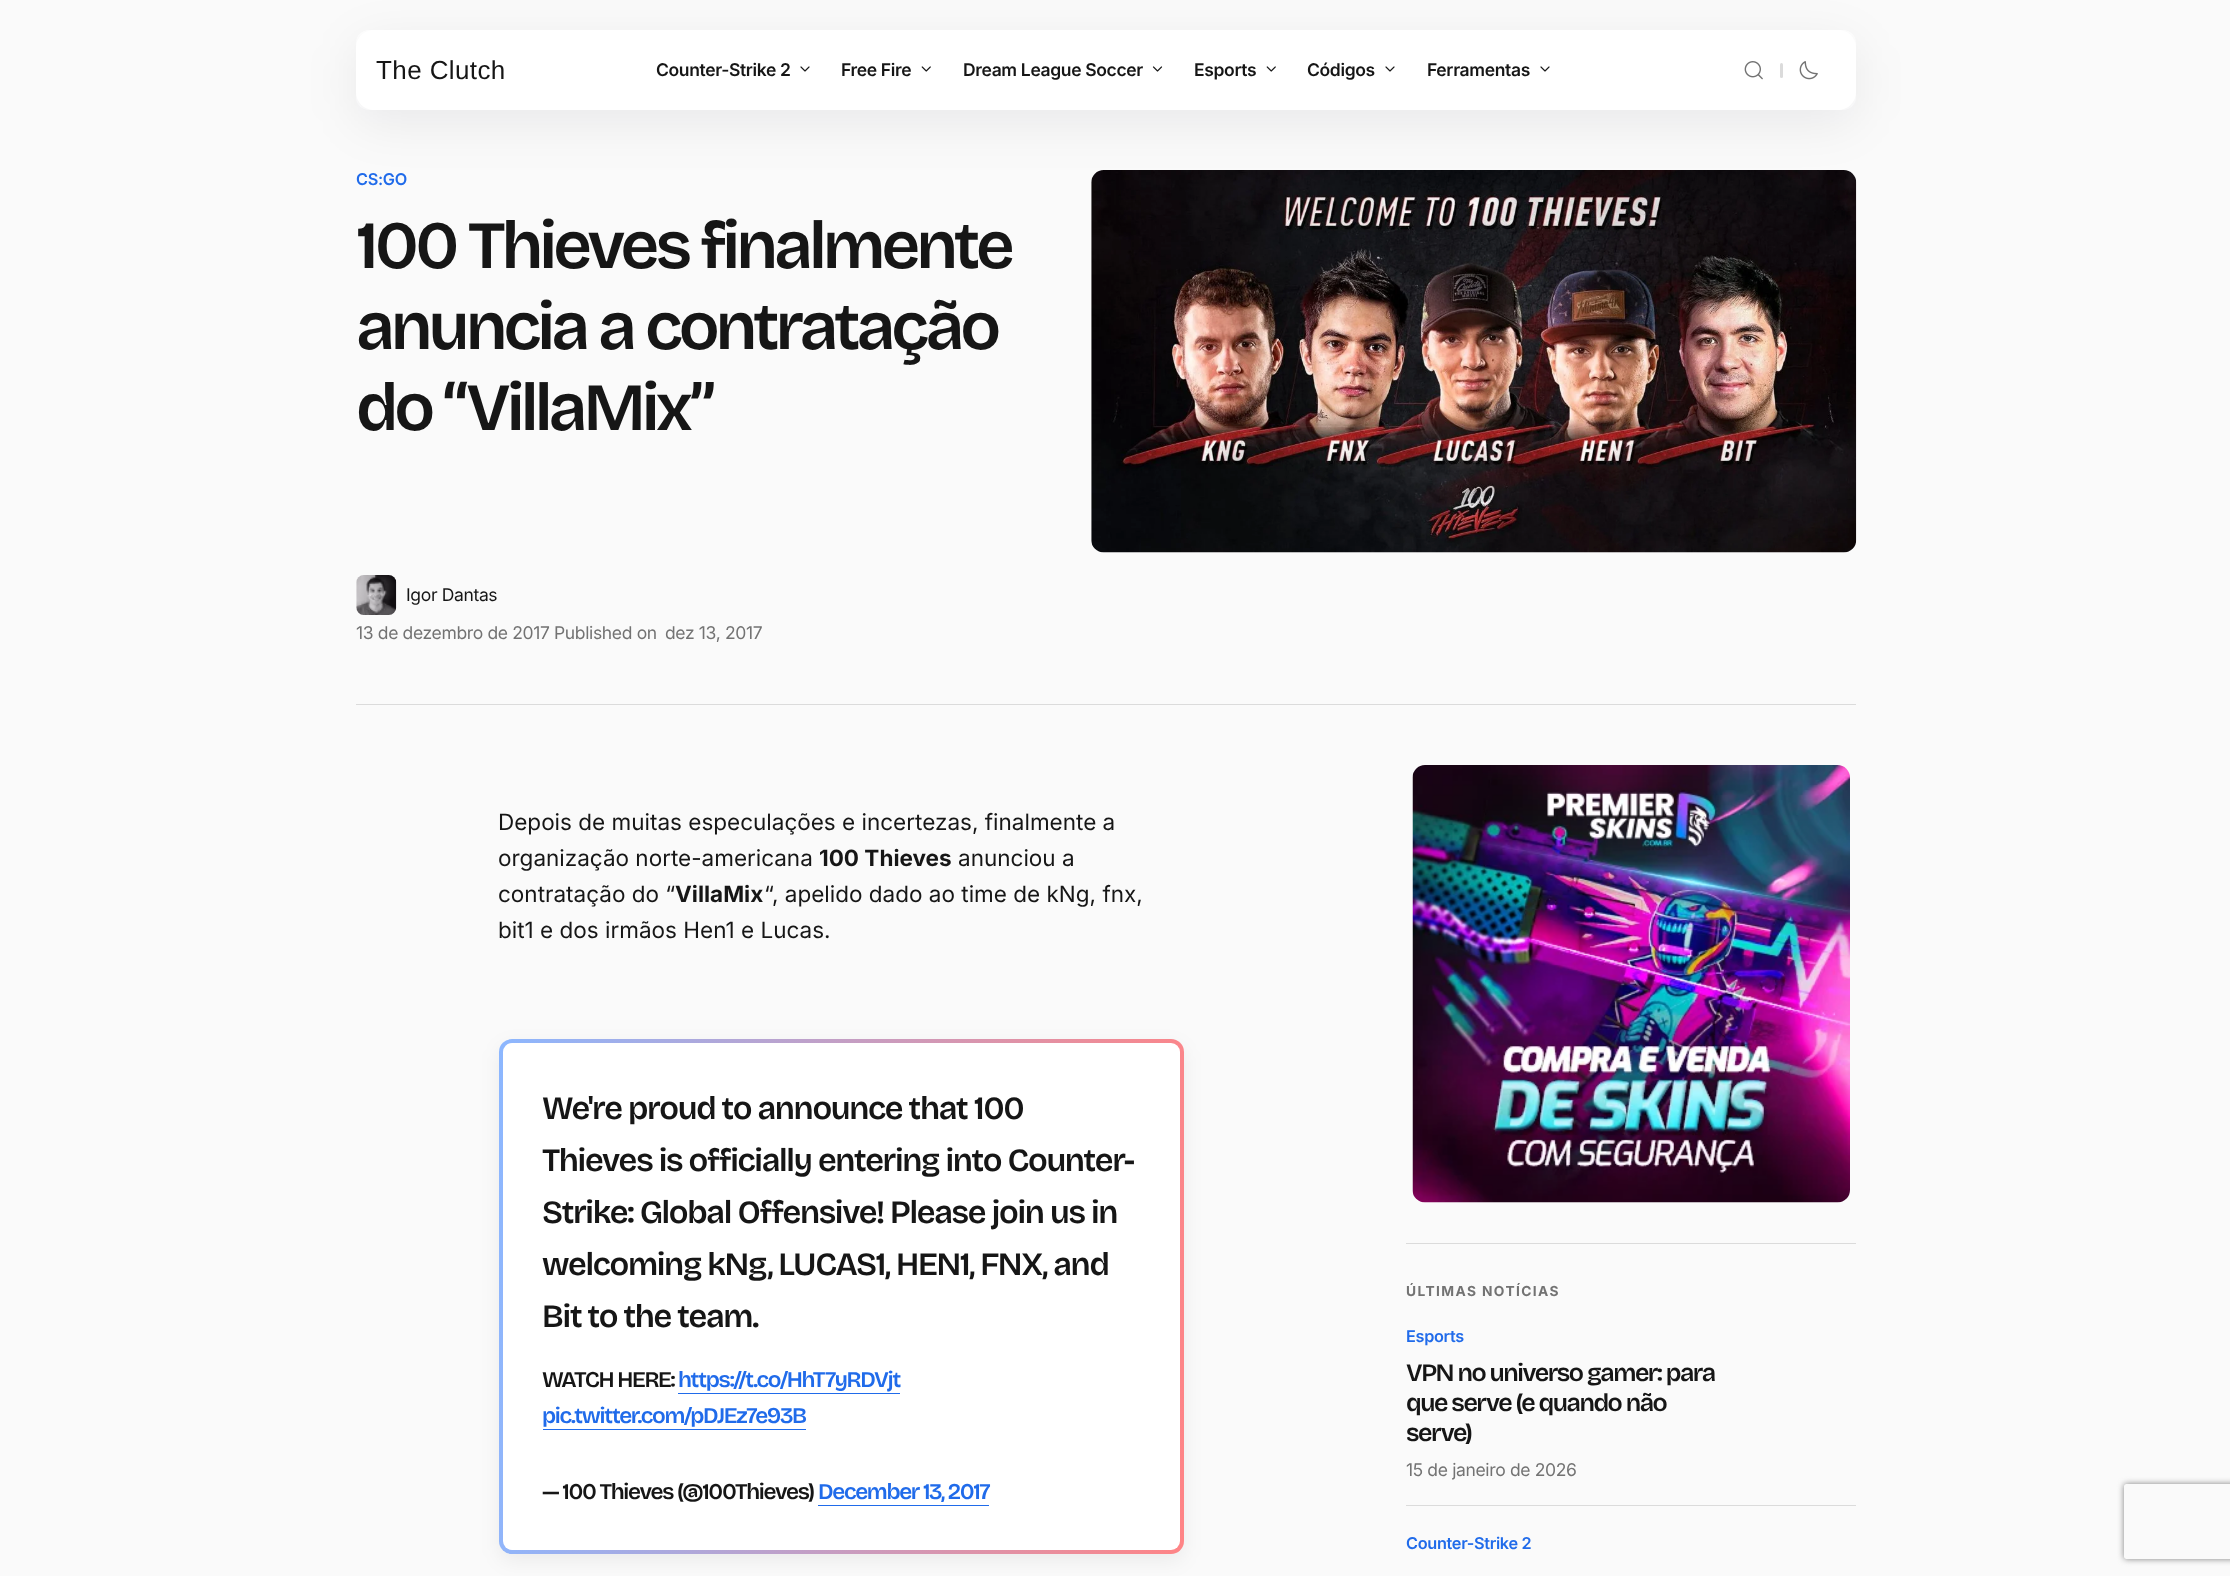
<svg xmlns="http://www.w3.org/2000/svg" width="2230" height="1576">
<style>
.a{font:26px Liberation Sans;letter-spacing:0.4px;fill:#161616}
.b{font:600 17.5px Inter;letter-spacing:-0.35px;fill:#161616}
.c{font:600 16.25px Inter;letter-spacing:-0.3px;fill:#206bea}
.d{font:600 67.5px Bricolage Grotesque;letter-spacing:-4.05px;fill:#161616}
.e{font:17.5px Inter;letter-spacing:-0.35px;fill:#161616}
.f{font:17.5px Inter;letter-spacing:-0.35px;fill:#737373}
.g{font:22.5px Inter;fill:#161616}
.h{font:bold 22.5px Inter;fill:#161616}
.i{font:600 32.5px Bricolage Grotesque;letter-spacing:-1.35px;fill:#161616}
.j{font:600 22.5px Bricolage Grotesque;letter-spacing:-1.35px;fill:#161616}
.k{font:600 22.5px Bricolage Grotesque;letter-spacing:-1.35px;fill:#206bea}
.l{font:bold 13.75px Inter;letter-spacing:1.4px;fill:#737373}
.m{font:600 25px Bricolage Grotesque;letter-spacing:-1.5px;fill:#161616}
</style>
<defs>
<clipPath id="clip1"><path d="M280 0h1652v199h-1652zm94 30h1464c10 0 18 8 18 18v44c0 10-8 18-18 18h-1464c-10 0-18-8-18-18v-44c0-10 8-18 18-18z" clip-rule="evenodd"/></clipPath>
<linearGradient id="g1" gradientUnits="userSpaceOnUse" x1="486" y1="1277" x2="1197" y2="1315"><stop offset="0" stop-color="#8cb7ff"/><stop offset="1" stop-color="#ff8486"/></linearGradient>
<clipPath id="clip2"><path d="M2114 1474h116v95h-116zm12.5 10h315c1.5 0 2.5 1 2.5 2.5v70c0 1.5-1 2.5-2.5 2.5h-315c-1.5 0-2.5-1-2.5-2.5v-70c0-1.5 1-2.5 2.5-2.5z" clip-rule="evenodd"/></clipPath>
</defs>
<rect width="100%" height="100%" fill="#fafafa"/>
<rect fill="#fff" x="356" y="30" width="1500" height="80" rx="13"/>
<image href="6.png" x="1091" y="170" width="766" height="383"/>
<g clip-path="url(#clip1)">
<rect fill="#00000f12" filter="blur(25px)" x="356" y="43" width="1500" height="80" rx="18"/>
</g>
<image href="1.png" x="800" y="66" width="10" height="6"/>
<image href="2.png" x="921" y="66" width="10" height="6"/>
<image href="3.png" x="1152" y="66" width="11" height="6"/>
<image href="2.png" x="1266" y="66" width="10" height="6"/>
<image href="1.png" x="1385" y="66" width="10" height="6"/>
<image href="1.png" x="1540" y="66" width="10" height="6"/>
<image href="4.png" x="1744" y="61" width="19" height="19"/>
<rect fill="#dbdbdb" x="1780" y="63" width="3" height="15" rx="1.5"/>
<image href="5.png" x="1799" y="61" width="19" height="19"/>
<path fill="#dbdbdb" d="M356 704h1500v1H356z"/>
<image href="7.png" x="356" y="575" width="41" height="40"/>
<rect fill="#0000000f" filter="blur(10px)" x="499" y="1046" width="685" height="515" rx="13"/>
<rect fill="url(#g1)" x="499" y="1039" width="685" height="515" rx="13"/>
<rect fill="#fff" x="503" y="1043" width="677" height="507" rx="9"/>
<path fill="#206bea" d="M678 1393h222v1H678z"/>
<path fill="#206bea" d="M543 1429h263v1H543z"/>
<path fill="#206bea" d="M818 1505h171v1H818z"/>
<path fill="#dbdbdb" d="M1406 1243h450v1H1406z"/>
<image href="8.png" x="1412" y="765" width="438" height="438"/>
<path fill="#dbdbdb" d="M1406 1505h450v1H1406z"/>
<g clip-path="url(#clip2)">
<rect fill="#808080" filter="blur(3px)" x="2124" y="1484" width="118" height="75" rx="2.5"/>
</g>
<text class="a" x="376" y="79">The Clutch</text>
<text class="b" x="656" y="76">Counter-Strike 2</text>
<text class="b" x="841" y="76">Free Fire</text>
<text class="b" x="963" y="76">Dream League Soccer</text>
<text class="b" x="1194" y="76">Esports</text>
<text class="b" x="1307" y="76">Códigos</text>
<text class="b" x="1427" y="76">Ferramentas</text>
<text class="c" x="356" y="185">CS:GO</text>
<text class="d" x="356" y="268">100 Thieves finalmente</text>
<text class="d" x="356" y="349">anuncia a contratação</text>
<text class="d" x="356" y="430">do “VillaMix”</text>
<text class="e" x="406" y="601">Igor Dantas</text>
<text class="f" x="356" y="639">13 de dezembro de 2017</text>
<text class="f" x="554" y="639">Published on</text>
<text class="f" x="665" y="639">dez 13, 2017</text>
<text class="g" x="498" y="830">Depois de muitas especulações e incertezas, finalmente a</text>
<text class="g" x="498" y="866">organização norte-americana</text>
<text class="h" x="819" y="866">100 Thieves</text>
<text class="g" x="958" y="866">anunciou a</text>
<text class="g" x="498" y="902">contratação do “</text>
<text class="h" x="675" y="902">VillaMix</text>
<text class="g" x="764" y="902">“, apelido dado ao time de kNg, fnx,</text>
<text class="g" x="498" y="938">bit1 e dos irmãos Hen1 e Lucas.</text>
<text class="i" x="542" y="1119">We're proud to announce that 100</text>
<text class="i" x="542" y="1171">Thieves is officially entering into Counter-</text>
<text class="i" x="542" y="1223">Strike: Global Offensive! Please join us in</text>
<text class="i" x="542" y="1275">welcoming kNg, LUCAS1, HEN1, FNX, and</text>
<text class="i" x="542" y="1327">Bit to the team.</text>
<text class="j" x="542" y="1387">WATCH HERE:</text>
<text class="k" x="678" y="1387">https://t.co/HhT7yRDVjt</text>
<text class="k" x="542" y="1423">pic.twitter.com/pDJEz7e93B</text>
<text class="j" x="542" y="1499">— 100 Thieves (@100Thieves)</text>
<text class="k" x="818" y="1499">December 13, 2017</text>
<text class="l" x="1406" y="1296">ÚLTIMAS NOTÍCIAS</text>
<text class="c" x="1406" y="1342">Esports</text>
<text class="m" x="1406" y="1381">VPN no universo gamer: para</text>
<text class="m" x="1406" y="1411">que serve (e quando não</text>
<text class="m" x="1406" y="1441">serve)</text>
<text class="f" x="1406" y="1476">15 de janeiro de 2026</text>
<text class="c" x="1406" y="1549">Counter-Strike 2</text>
</svg>
